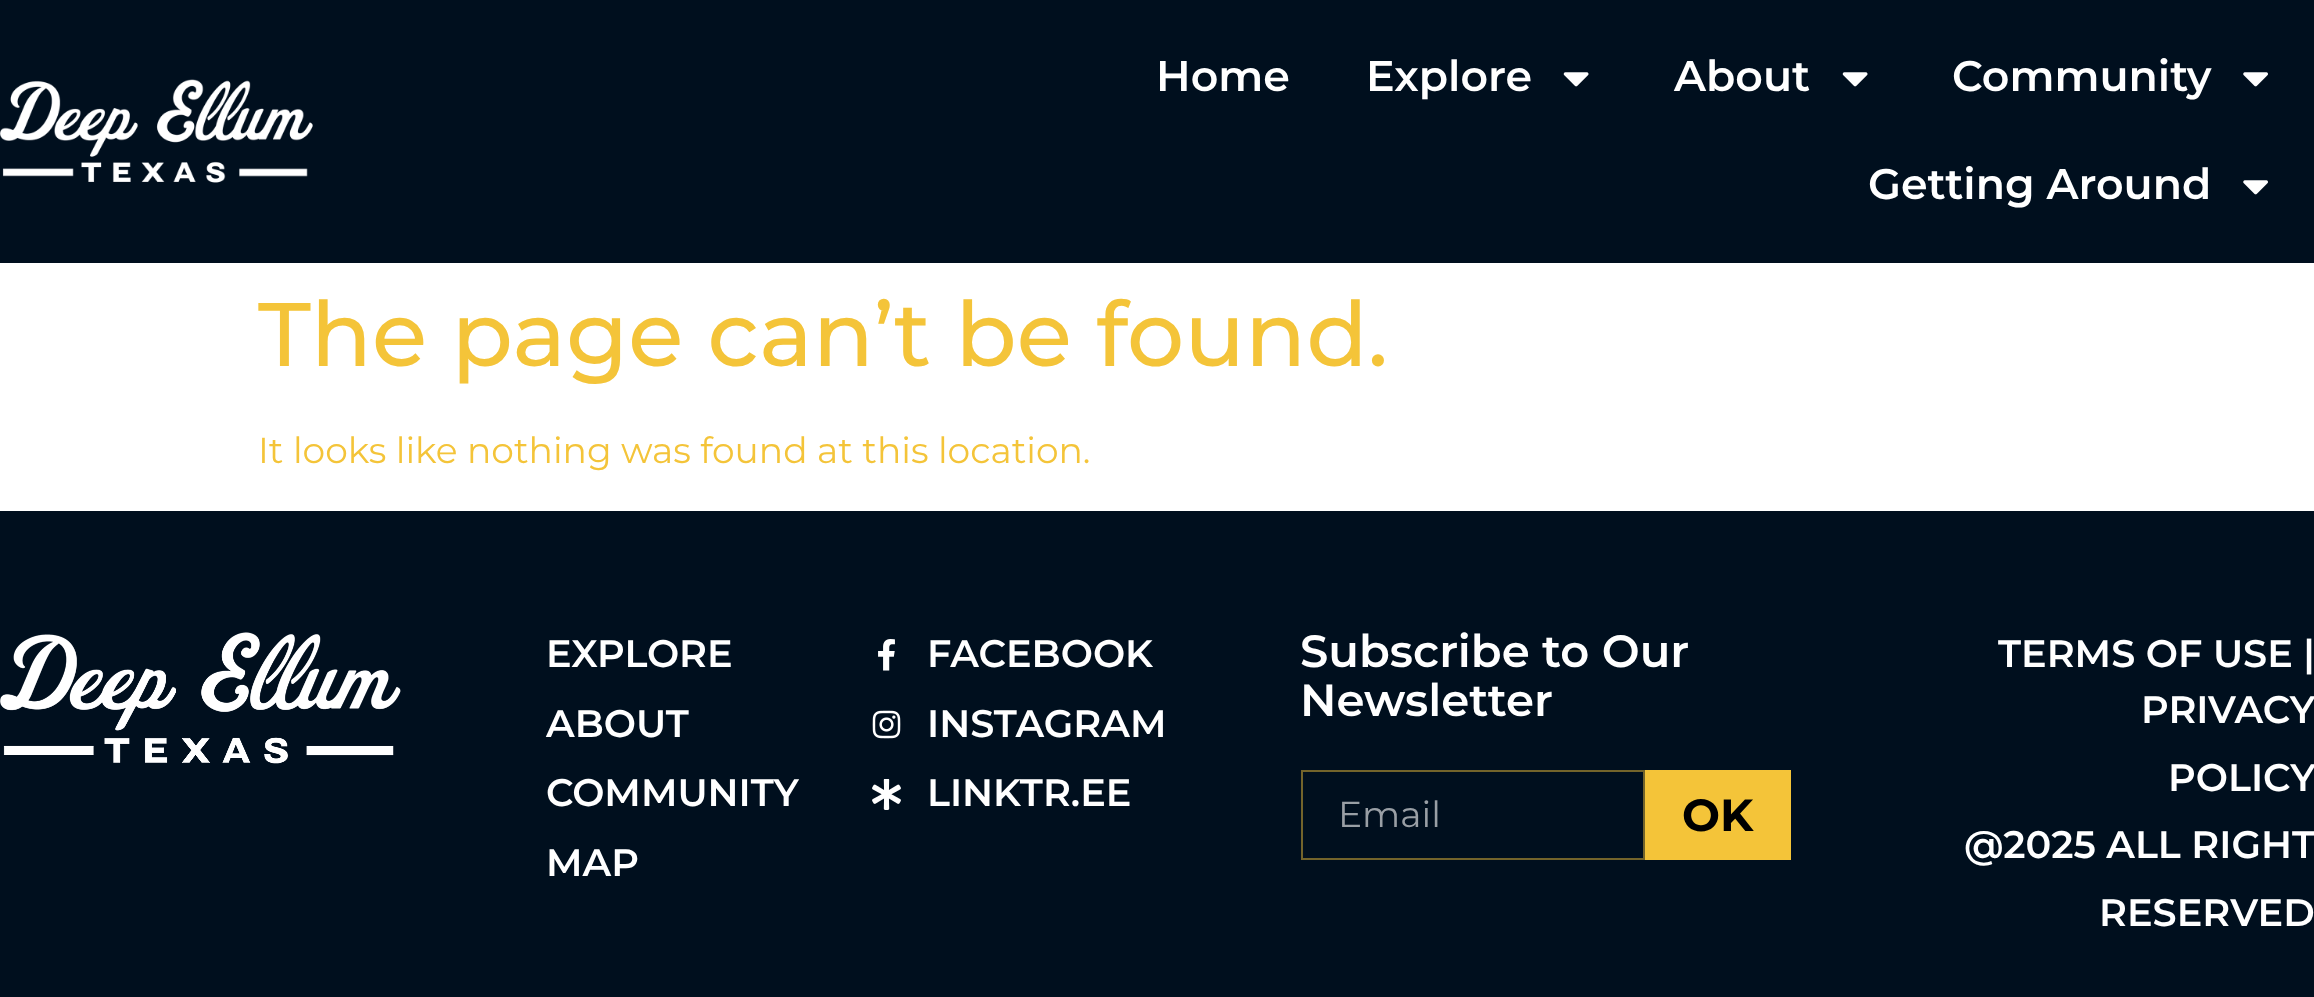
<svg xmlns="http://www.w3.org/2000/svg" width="2314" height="997">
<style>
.a{font:600 42.75px Montserrat;fill:#fff}
.b{font:500 90px Montserrat;fill:#f4c439}
.c{font:36px Montserrat;fill:#f4c439}
.d{font:600 38.25px Montserrat;fill:#fff}
.e{font:600 45px Montserrat;fill:#fff}
.f{font:36px Montserrat;fill:#999fa5}
.g{font:bold 45px Montserrat;fill:#000}
</style>
<rect width="100%" height="100%" fill="#fff"/>
<path fill="#000f1e" d="M0 0h2314v263H0z"/>
<image href="1.png" x="0" y="79" width="313" height="104"/>
<image href="2.png" x="1563" y="72" width="26" height="15"/>
<image href="2.png" x="1842" y="72" width="26" height="15"/>
<image href="3.png" x="2243" y="72" width="25" height="15"/>
<image href="3.png" x="2243" y="180" width="25" height="15"/>
<path fill="#000f1e" d="M0 511h2314v486H0z"/>
<image href="4.png" x="0" y="632" width="401" height="132"/>
<image href="5.png" x="878" y="639" width="17" height="32"/>
<image href="6.png" x="872" y="710" width="29" height="29"/>
<image href="7.png" x="872" y="779" width="29" height="31"/>
<path fill="none" stroke="#73642b" stroke-width="2" d="M1302 771h342v88H1302z"/>
<path fill="#f4c439" d="M1645 770h146v90H1645z"/>
<text class="a" x="1156" y="91">Home</text>
<text class="a" x="1366" y="91">Explore</text>
<text class="a" x="1674" y="91">About</text>
<text class="a" x="1952" y="91">Community</text>
<text class="a" x="1868" y="199">Getting Around</text>
<text class="b" x="258" y="366">The page can’t be found.</text>
<text class="c" x="258" y="463">It looks like nothing was found at this location.</text>
<text class="d" x="546" y="667">EXPLORE</text>
<text class="d" x="546" y="737">ABOUT</text>
<text class="d" x="546" y="806">COMMUNITY</text>
<text class="d" x="546" y="876">MAP</text>
<text class="d" x="927" y="667">FACEBOOK</text>
<text class="d" x="927" y="737">INSTAGRAM</text>
<text class="d" x="927" y="806">LINKTR.EE</text>
<text class="e" x="1300" y="667">Subscribe to Our</text>
<text class="e" x="1300" y="716">Newsletter</text>
<text class="f" x="1338" y="827">Email</text>
<text class="g" x="1682" y="831">OK</text>
<text class="d" x="1998" y="667">TERMS OF USE |</text>
<text class="d" x="2141" y="723">PRIVACY</text>
<text class="d" x="2168" y="791">POLICY</text>
<text class="d" x="1964" y="858">@2025 ALL RIGHT</text>
<text class="d" x="2099" y="926">RESERVED</text>
</svg>
